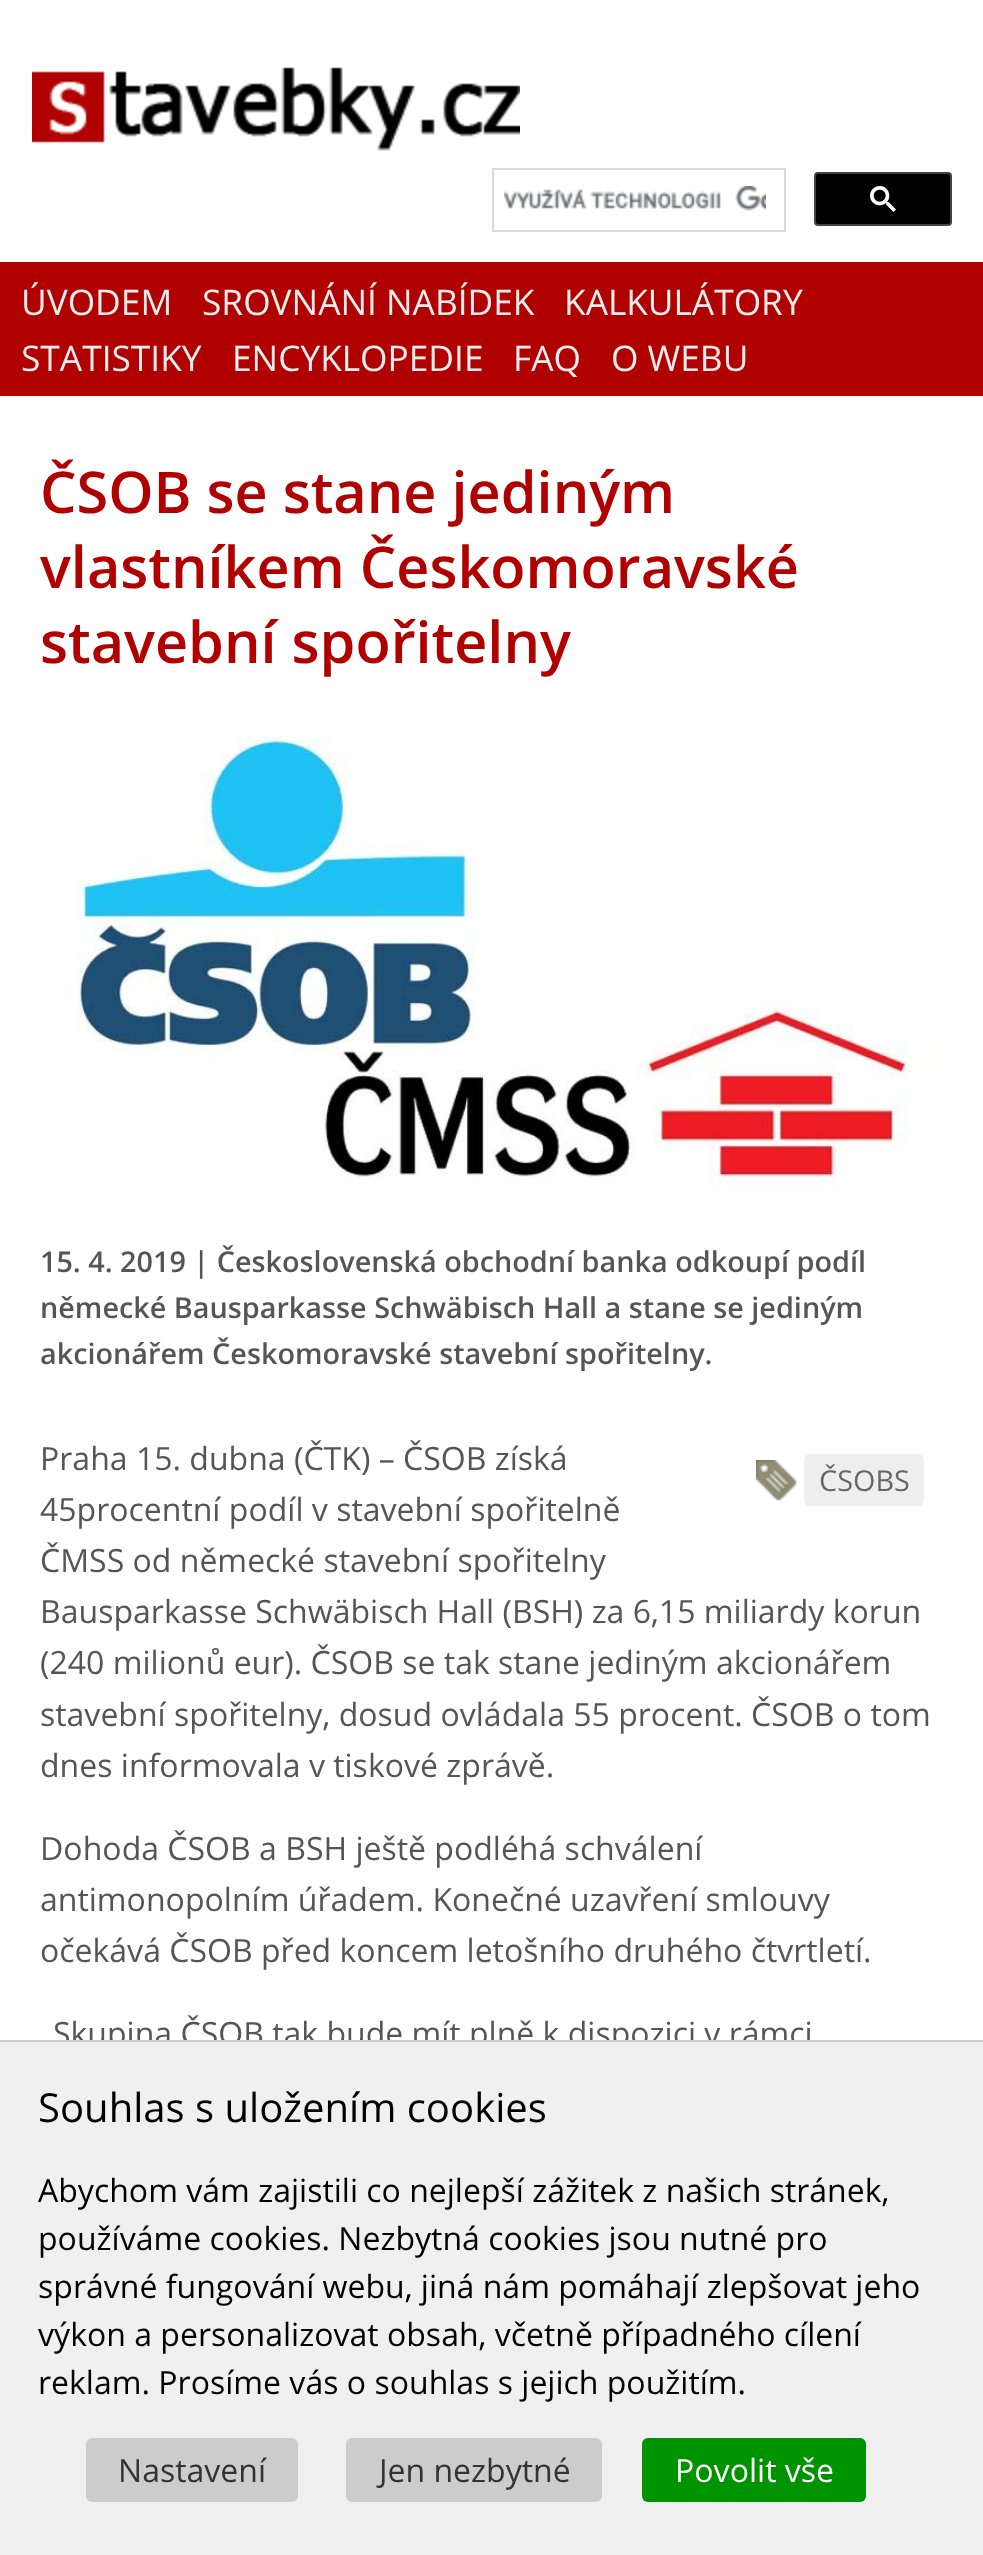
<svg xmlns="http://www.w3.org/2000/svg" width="983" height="2555">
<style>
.a{font:35.25px Open Sans;fill:#eee}
.b{font:600 57.6px Open Sans;fill:#b00000}
.c{font:600 28.8px Open Sans;fill:#555}
.d{font:32px Open Sans;fill:#555}
.e{font:28.8px Open Sans;fill:#666}
.f{font:40px Open Sans;fill:#000}
.g{font:32px Open Sans;fill:#000}
.h{font:32px Open Sans;fill:#333}
.i{font:32px Open Sans;fill:#fff}
</style>
<rect width="100%" height="100%" fill="#fff"/>
<image href="1.png" x="32" y="67" width="488" height="84"/>
<path fill="none" stroke="#d9d9d9" stroke-width="2" d="M493 169h292v62H493z"/>
<image href="2.png" x="504" y="186" width="262" height="25"/>
<rect fill="#000" stroke="#444" stroke-width="2" x="815" y="173" width="136" height="52" rx="3"/>
<image href="3.png" x="870" y="186" width="26" height="26"/>
<path fill="#b00000" d="M0 262h983v134H0z"/>
<image href="4.png" x="40" y="736" width="904" height="472"/>
<image href="5.png" x="756" y="1460" width="41" height="41"/>
<rect fill="#eee" x="804" y="1454" width="120" height="52" rx="6"/>
<text class="a" x="21" y="315">ÚVODEM</text>
<text class="a" x="202" y="315">SROVNÁNÍ NABÍDEK</text>
<text class="a" x="564" y="315">KALKULÁTORY</text>
<text class="a" x="21" y="371">STATISTIKY</text>
<text class="a" x="232" y="371">ENCYKLOPEDIE</text>
<text class="a" x="513" y="371">FAQ</text>
<text class="a" x="611" y="371">O WEBU</text>
<text class="b" x="40" y="513">ČSOB se stane jediným</text>
<text class="b" x="40" y="588">vlastníkem Českomoravské</text>
<text class="b" x="40" y="663">stavební spořitelny</text>
<text class="c" x="40" y="1272">15. 4. 2019 | Československá obchodní banka odkoupí podíl</text>
<text class="c" x="40" y="1318">německé Bausparkasse Schwäbisch Hall a stane se jediným</text>
<text class="c" x="40" y="1364">akcionářem Českomoravské stavební spořitelny.</text>
<text class="d" x="40" y="1470">Praha 15. dubna (ČTK) – ČSOB získá</text>
<text class="e" x="819" y="1491">ČSOBS</text>
<text class="d" x="40" y="1521">45procentní podíl v stavební spořitelně</text>
<text class="d" x="40" y="1572">ČMSS od německé stavební spořitelny</text>
<text class="d" x="40" y="1623">Bausparkasse Schwäbisch Hall (BSH) za 6,15 miliardy korun</text>
<text class="d" x="40" y="1674">(240 milionů eur). ČSOB se tak stane jediným akcionářem</text>
<text class="d" x="40" y="1726">stavební spořitelny, dosud ovládala 55 procent. ČSOB o tom</text>
<text class="d" x="40" y="1777">dnes informovala v tiskové zprávě.</text>
<text class="d" x="40" y="1860">Dohoda ČSOB a BSH ještě podléhá schválení</text>
<text class="d" x="40" y="1911">antimonopolním úřadem. Konečné uzavření smlouvy</text>
<text class="d" x="40" y="1962">očekává ČSOB před koncem letošního druhého čtvrtletí.</text>
<text class="d" x="53" y="2045">Skupina ČSOB tak bude mít plně k dispozici v rámci</text>
<path fill="#f0f0f0" d="M0 2042h983v513H0z"/>
<path fill="#ccc" d="M0 2040h983v2H0z"/>
<text class="f" x="38" y="2122">Souhlas s uložením cookies</text>
<text class="g" x="38" y="2202">Abychom vám zajistili co nejlepší zážitek z našich stránek,</text>
<text class="g" x="38" y="2250">používáme cookies. Nezbytná cookies jsou nutné pro</text>
<text class="g" x="38" y="2298">správné fungování webu, jiná nám pomáhají zlepšovat jeho</text>
<text class="g" x="38" y="2346">výkon a personalizovat obsah, včetně případného cílení</text>
<text class="g" x="38" y="2394">reklam. Prosíme vás o souhlas s jejich použitím.</text>
<rect fill="#ccc" x="86" y="2438" width="212" height="64" rx="6"/>
<text class="h" x="118" y="2482">Nastavení</text>
<rect fill="#ccc" x="346" y="2438" width="256" height="64" rx="6"/>
<text class="h" x="379" y="2482">Jen nezbytné</text>
<rect fill="#009300" x="642" y="2438" width="224" height="64" rx="6"/>
<text class="i" x="675" y="2482">Povolit vše</text>
</svg>
